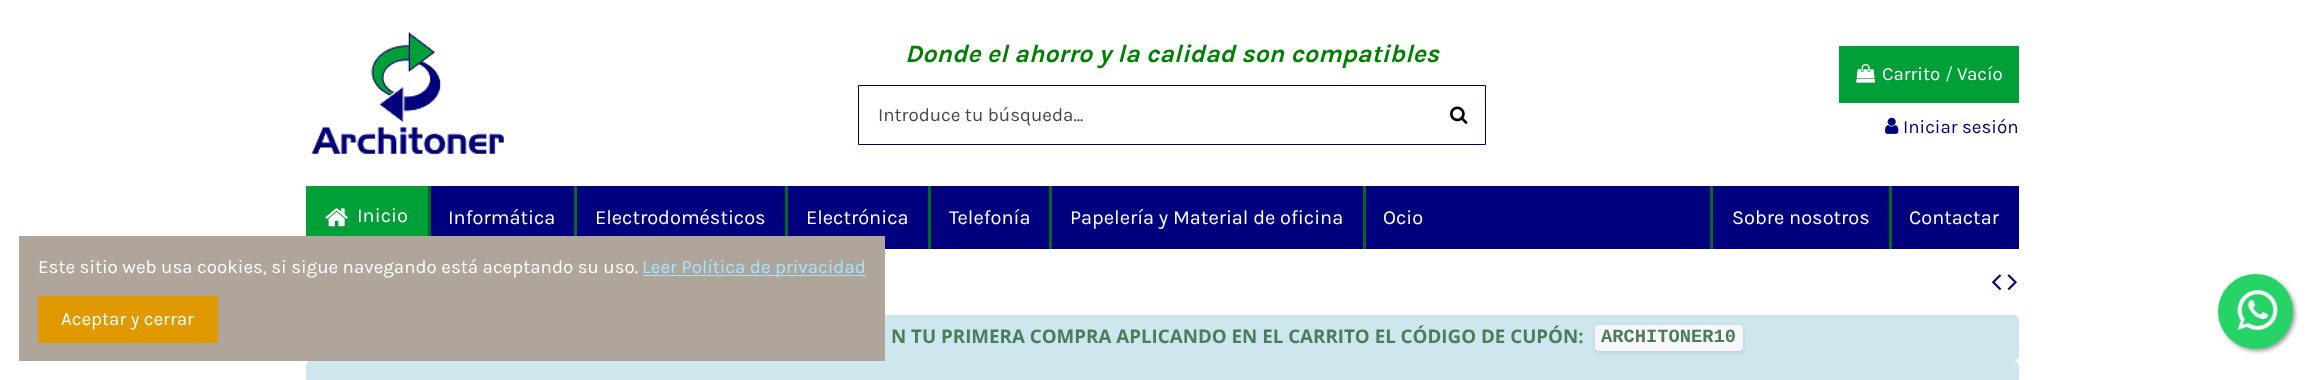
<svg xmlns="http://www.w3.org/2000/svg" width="2323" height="380">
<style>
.a{font:italic bold 25px Karla;fill:#008000}
.b{font:18.75px Karla;fill:#484848}
.c{font:18.75px Karla;fill:#fff}
.d{font:18.75px Karla;fill:#ccecd7}
.e{font:18.75px Karla;fill:#00007e}
.f{font:20px Karla;fill:#fff}
.g{font:bold 18.75px Open Sans;fill:#4a7d5a}
.h{font:bold 18.75px Liberation Mono;fill:#4a7d5a}
.i{font:18.75px Karla;fill:#a4e4ff}
</style>
<rect width="100%" height="100%" fill="#fff"/>
<image href="1.png" x="311" y="32" width="193" height="123"/>
<path fill="none" stroke="#00007e" d="M858.5 85.5h627v59H858.5z"/>
<image href="2.png" x="1450" y="106" width="18" height="18"/>
<path fill="#009f37" d="M1839 46h180v57H1839z"/>
<image href="3.png" x="1856" y="63" width="19" height="20"/>
<image href="4.png" x="1885" y="117" width="14" height="17"/>
<path fill="#00007e" d="M431 186h1588v63H431z"/>
<path fill="#009f37" d="M306 186h122v50H306z"/>
<image href="5.png" x="325" y="208" width="23" height="19"/>
<path fill="#006a25" d="M428 186h3v50H428z"/>
<path fill="#006a25" d="M574 186h3v50H574z"/>
<path fill="#006a25" d="M785 186h3v50H785z"/>
<path fill="#006a25" d="M928 186h3v63H928z"/>
<path fill="#006a25" d="M1049 186h3v63H1049z"/>
<path fill="#006a25" d="M1363 186h3v63H1363z"/>
<path fill="#006a25" d="M1710 186h3v63H1710z"/>
<path fill="#006a25" d="M1889 186h3v63H1889z"/>
<image href="6.png" x="1992" y="274" width="9" height="16"/>
<image href="7.png" x="2007" y="274" width="10" height="16"/>
<rect fill="#cee7ee" x="306" y="315" width="1713" height="46" rx="5"/>
<rect fill="#0000001a" filter="blur(2px)" x="1595" y="326" width="148" height="27" rx="4"/>
<rect fill="#f7f7f9" x="1595" y="325" width="148" height="26" rx="4"/>
<rect fill="#cee7ee" x="306" y="361" width="1713" height="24" rx="5"/>
<path fill="#afa59b" d="M19 236h866v125H19z"/>
<path fill="#a4e4ff" d="M643 275h223v1H643z"/>
<path fill="#e09900" d="M38 296h180v47H38z"/>
<rect fill="#999" filter="blur(2px)" x="2220" y="276" width="75" height="75" rx="37.5"/>
<circle fill="#25d366" cx="2255.5" cy="311.5" r="37.5"/>
<image href="8.png" x="2237" y="290" width="41" height="40"/>
<text class="a" x="905" y="62">Donde el ahorro y la calidad son compatibles</text>
<text class="b" x="878" y="121">Introduce tu búsqueda...</text>
<text class="c" x="1882" y="80">Carrito</text>
<text class="d" x="1945" y="80">/</text>
<text class="c" x="1957" y="80">Vacío</text>
<text class="e" x="1903" y="133">Iniciar sesión</text>
<text class="f" x="357" y="222">Inicio</text>
<text class="f" x="448" y="224">Informática</text>
<text class="f" x="595" y="224">Electrodomésticos</text>
<text class="f" x="806" y="224">Electrónica</text>
<text class="f" x="949" y="224">Telefonía</text>
<text class="f" x="1070" y="224">Papelería y Material de oficina</text>
<text class="f" x="1383" y="224">Ocio</text>
<text class="f" x="1732" y="224">Sobre nosotros</text>
<text class="f" x="1909" y="224">Contactar</text>
<text class="g" x="891" y="343">N TU PRIMERA COMPRA APLICANDO EN EL CARRITO EL CÓDIGO DE CUPÓN:</text>
<text class="h" x="1601" y="342">ARCHITONER10</text>
<text class="c" x="38" y="273">Este sitio web usa cookies, si sigue navegando está aceptando su uso.</text>
<text class="i" x="642" y="273">Leer Política de privacidad</text>
<text class="c" x="61" y="325">Aceptar y cerrar</text>
</svg>
